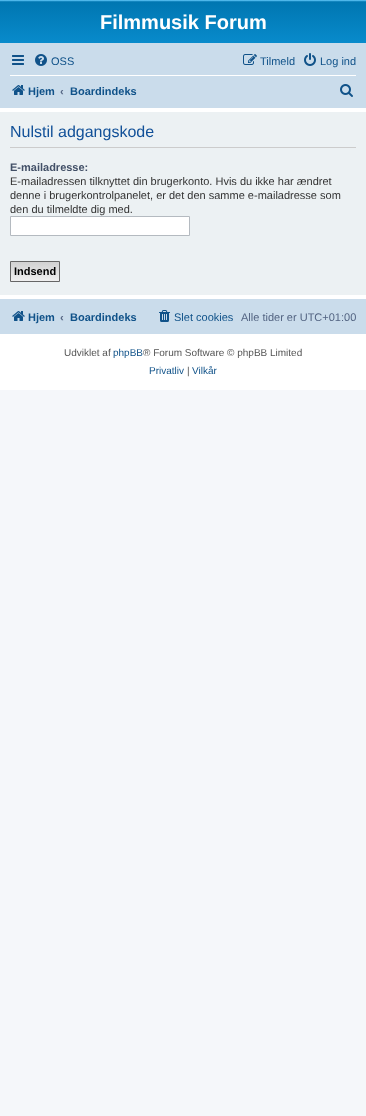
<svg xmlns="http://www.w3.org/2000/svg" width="366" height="1116">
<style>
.a{font:bold 20px Liberation Sans;fill:#fff}
.b{font:11px Liberation Sans;fill:#105289}
.c{font:bold 11px Liberation Sans;fill:#105289}
.d{font:bold 11px Liberation Sans;fill:#536482}
.e{font:16px Liberation Sans;fill:#115098}
.f{font:bold 11px Liberation Sans;fill:#425067}
.g{font:11px Liberation Sans;fill:#333}
.h{font:bold 11px Liberation Sans;fill:#000}
.i{font:11px Liberation Sans;fill:#536482}
.j{font:10px Liberation Sans;fill:#555}
.k{font:10px Liberation Sans;fill:#105289}
</style>
<defs>
<linearGradient id="g1" gradientUnits="userSpaceOnUse" x1="183" y1="0" x2="183" y2="92"><stop offset="0" stop-color="#6aceff"/><stop offset="0.02" stop-color="#0076b1"/><stop offset="1" stop-color="#12a3eb"/></linearGradient>
<linearGradient id="g2" gradientUnits="userSpaceOnUse" x1="35" y1="262" x2="35" y2="281"><stop offset="0" stop-color="#d2d2d2"/><stop offset="1" stop-color="#efefef"/></linearGradient>
</defs>
<rect width="100%" height="100%" fill="#f5f7fa"/>
<path fill="#fff" d="M0 108h366v282H0z"/>
<path fill="url(#g1)" d="M0 0h366v43H0z"/>
<path fill="#cadceb" d="M0 43h366v65H0z"/>
<image href="1.png" x="12" y="55" width="12" height="10"/>
<image href="2.png" x="35" y="54" width="12" height="12"/>
<image href="3.png" x="243" y="54" width="14" height="11"/>
<image href="4.png" x="304" y="53" width="12" height="13"/>
<path fill="#fff" d="M10 75h346v1H10z"/>
<image href="5.png" x="12" y="85" width="13" height="10"/>
<image href="6.png" x="340" y="84" width="13" height="13"/>
<path fill="#ecf1f3" d="M0 112h366v183H0z"/>
<path fill="#ccc" d="M10 147h346v1H10z"/>
<path fill="#fff" stroke="#b4bac0" d="M10.5 216.5h179v19H10.5z"/>
<path fill="url(#g2)" d="M11 262h48v19H11z"/>
<path fill="none" stroke="#666" d="M10.5 261.5h49v20H10.5z"/>
<path fill="#cadceb" d="M0 299h366v35H0z"/>
<image href="5.png" x="12" y="311" width="13" height="10"/>
<image href="7.png" x="159" y="310" width="11" height="12"/>
<text class="a" x="100" y="29">Filmmusik Forum</text>
<text class="b" x="51" y="65">OSS</text>
<text class="b" x="260" y="65">Tilmeld</text>
<text class="b" x="320" y="65">Log ind</text>
<text class="c" x="28" y="95">Hjem</text>
<text class="d" x="60" y="95">‹</text>
<text class="c" x="70" y="95">Boardindeks</text>
<text class="e" x="10" y="137">Nulstil adgangskode</text>
<text class="f" x="10" y="171">E-mailadresse:</text>
<text class="g" x="10" y="185">E-mailadressen tilknyttet din brugerkonto. Hvis du ikke har ændret</text>
<text class="g" x="10" y="199">denne i brugerkontrolpanelet, er det den samme e-mailadresse som</text>
<text class="g" x="10" y="213">den du tilmeldte dig med.</text>
<text class="h" x="14" y="275">Indsend</text>
<text class="c" x="28" y="321">Hjem</text>
<text class="d" x="60" y="321">‹</text>
<text class="c" x="70" y="321">Boardindeks</text>
<text class="b" x="174" y="321">Slet cookies</text>
<text class="i" x="241" y="321">Alle tider er UTC+01:00</text>
<text class="j" x="64" y="356">Udviklet af</text>
<text class="k" x="113" y="356">phpBB</text>
<text class="j" x="143" y="356">® Forum Software © phpBB Limited</text>
<text class="k" x="149" y="374">Privatliv</text>
<text class="j" x="187" y="374">|</text>
<text class="k" x="192" y="374">Vilkår</text>
</svg>
